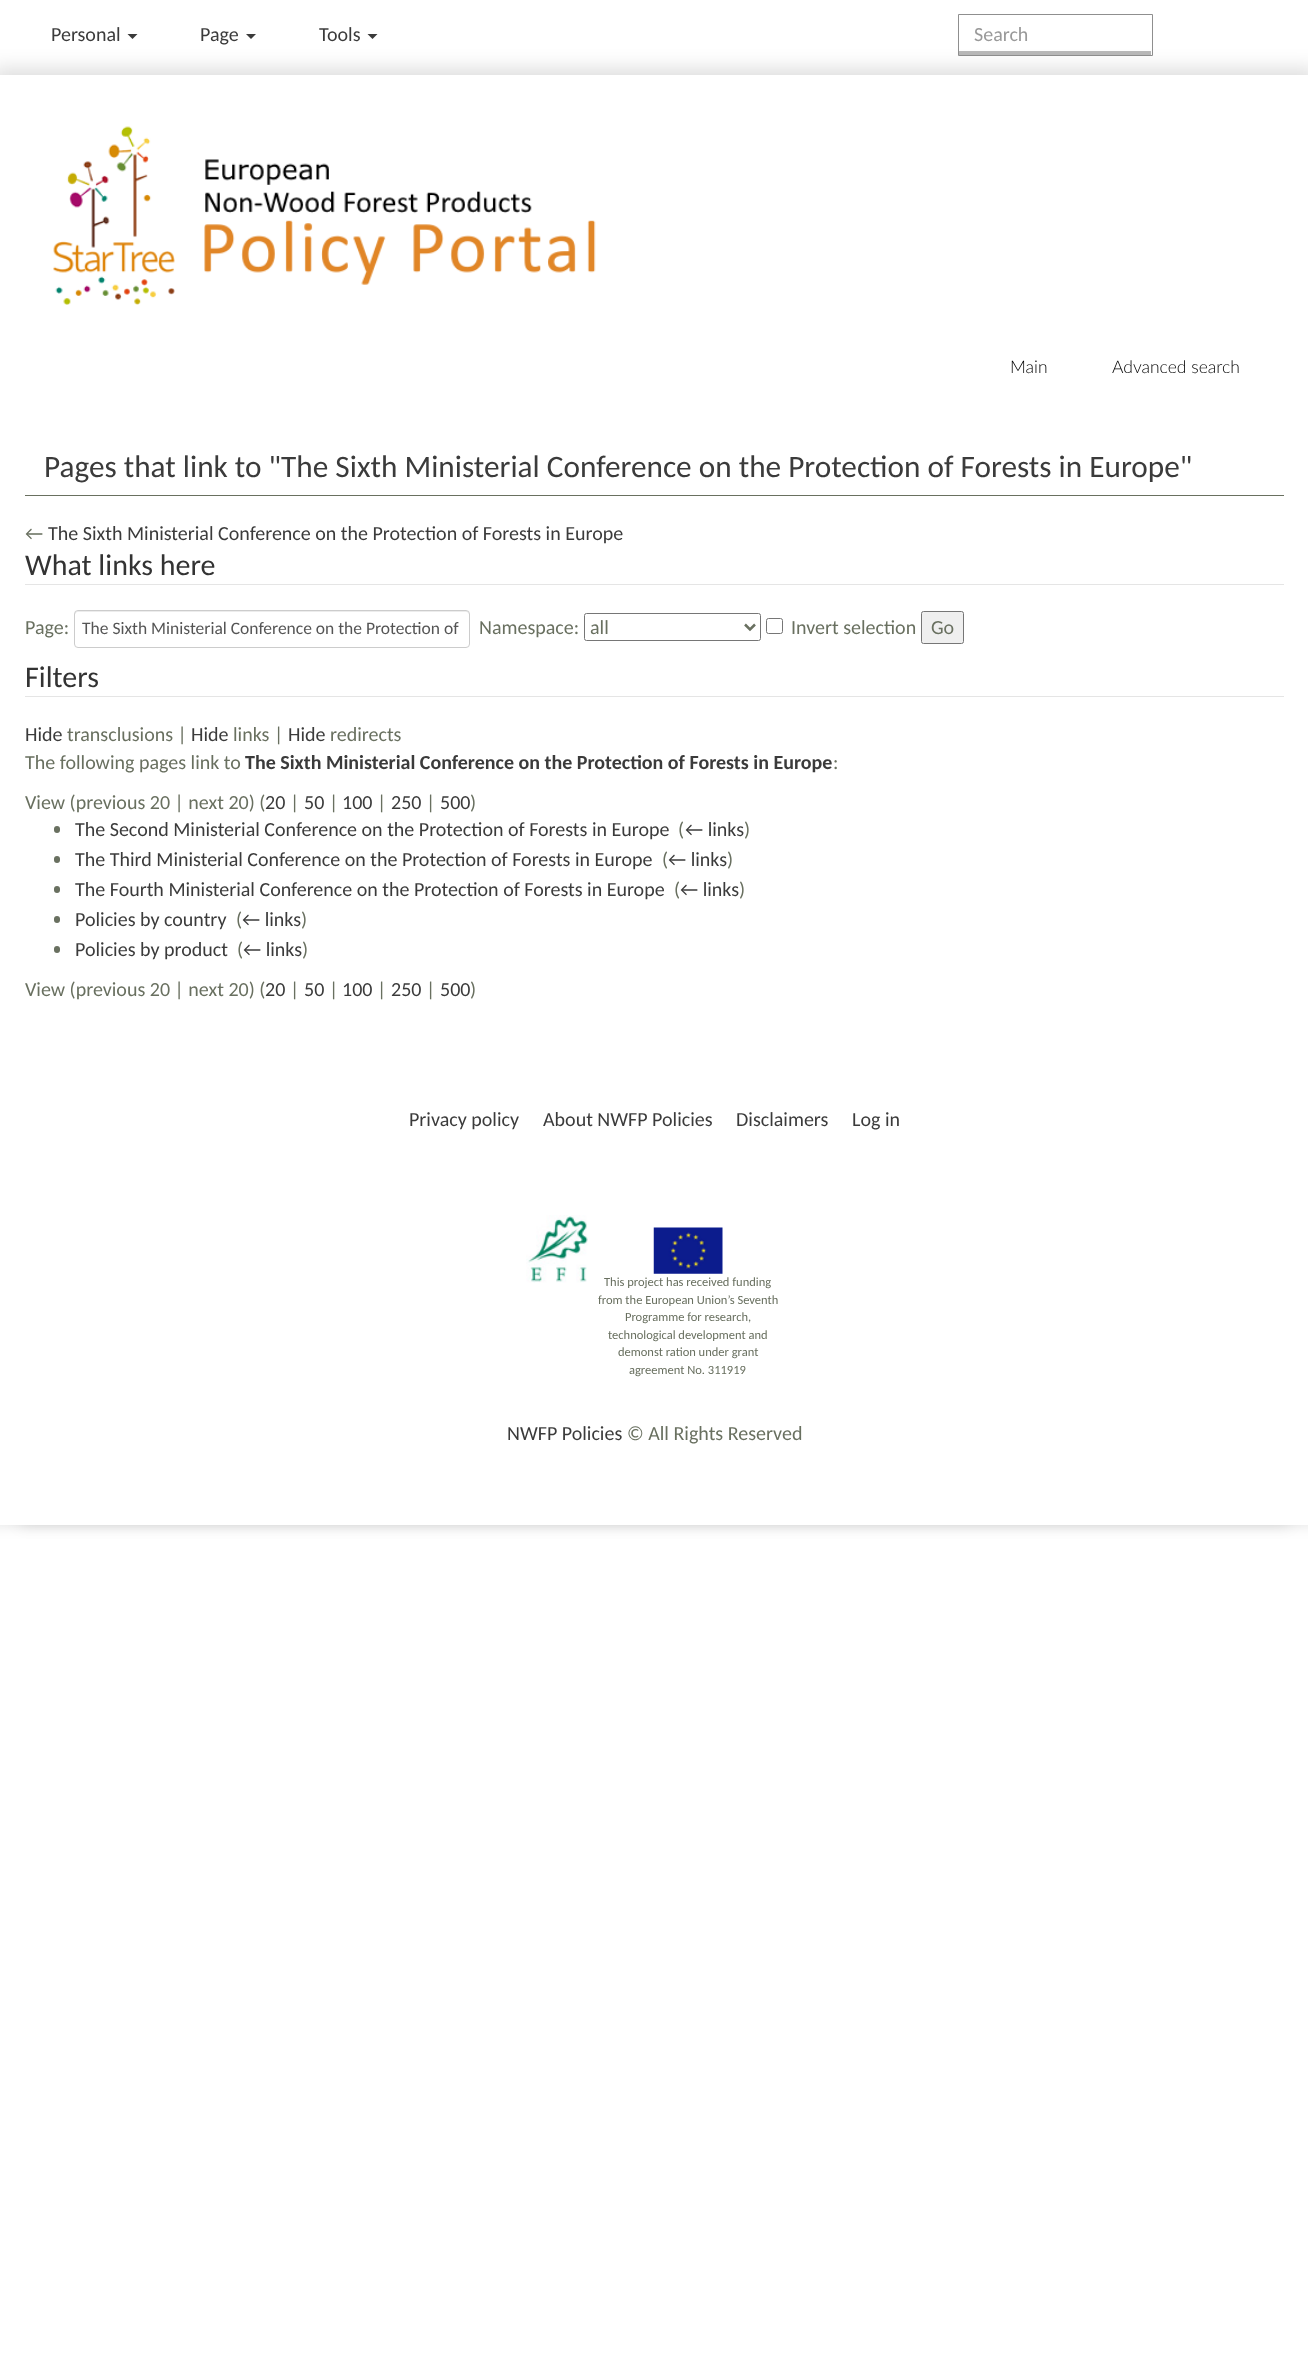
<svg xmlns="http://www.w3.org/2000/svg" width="1308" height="2358">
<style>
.a{font:20px Carlito;fill:#3b3b3b}
.b{font:20px Carlito;fill:#999}
.c{font:300 17.5px Lato;fill:#000}
.d{font:31.25px Carlito;fill:#3b3b3b}
.e{font:20px Carlito;fill:#697060}
.f{font:30px Carlito;fill:#333}
.g{font:17.5px Carlito;fill:#555}
.h{font:bold 20px Carlito;fill:#3b3b3b}
.i{font:12.5px Carlito;fill:#697060}
</style>
<rect width="100%" height="100%" fill="#fff"/>
<path fill="#3b3b3b" d="M127.5 34h10l-5 5z"/>
<path fill="#3b3b3b" d="M246 34h10l-5 5z"/>
<path fill="#3b3b3b" d="M367.5 34h10l-5 5z"/>
<path fill="#b9b9b9" d="M959 51h192v4H959z"/>
<path fill="none" stroke="#8f8f8f" d="M958.5 14.5h194v41H958.5z"/>
<path fill="#00000021" filter="blur(9.5px)" d="M-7 68h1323v338H-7z"/>
<path fill="#fff" d="M0 75h1308v313H0z"/>
<image href="1.png" x="53" y="126" width="543" height="179"/>
<path fill="#fff" d="M0 388v11h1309v642v-653z"/>
<path fill="#00000021" filter="blur(7.5px)" d="M-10 1048h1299v476H-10z"/>
<path fill="#00000021" filter="blur(7.5px)" d="M20 1048h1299v476H20z"/>
<path fill="#fff" d="M0 1052v12h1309v-654v642z"/>
<path fill="#fff" d="M0 399h1308v653H0z"/>
<path fill="#697060" d="M25 495h1259v1H25z"/>
<path fill="#e5e5e5" d="M25 584h1259v1H25z"/>
<path fill="#ececec" d="M78 612h388c2 0 3 2 3 3c0-2 0-4-3-4h-388l-3 1v3c0-1 1-3 3-3z"/>
<rect fill="none" stroke="#ccc" x="74.5" y="610.5" width="395" height="37" rx="3.5"/>
<rect fill="none" stroke="#767676" x="584.5" y="613.5" width="176" height="27" rx="2"/>
<path fill="none" stroke="#697060" stroke-width="2.5" d="M745 624.5l5 5l5-5"/>
<rect fill="none" stroke="#767676" x="766.5" y="618.5" width="16" height="15" rx="2"/>
<rect fill="#efefef" stroke="#767676" x="921.5" y="611.5" width="42" height="32" rx="2"/>
<path fill="#e5e5e5" d="M25 696h1259v1H25z"/>
<rect fill="#697060" x="54" y="826" width="6" height="7" rx="3"/>
<rect fill="#697060" x="54" y="856" width="6" height="7" rx="3"/>
<rect fill="#697060" x="54" y="886" width="6" height="7" rx="3"/>
<rect fill="#697060" x="54" y="916" width="6" height="7" rx="3"/>
<rect fill="#697060" x="54" y="946" width="6" height="7" rx="3"/>
<path fill="#fff" d="M0 1514v11h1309v-486v475z"/>
<path fill="#fff" d="M0 1064h1308v450H0z"/>
<image href="2.png" x="526" y="1215" width="62" height="68"/>
<image href="3.png" x="653" y="1227" width="70" height="47"/>
<text class="a" x="51" y="41">Personal</text>
<text class="a" x="200" y="41">Page</text>
<text class="a" x="319" y="41">Tools</text>
<text class="b" x="974" y="41">Search</text>
<text class="c" x="1010" y="373">Main</text>
<text class="c" x="1112" y="373">Advanced search</text>
<text class="d" x="44" y="477">Pages that link to "The Sixth Ministerial Conference on the Protection of Forests in Europe"</text>
<text class="e" x="25" y="540">←</text>
<text class="a" x="48" y="540">The Sixth Ministerial Conference on the Protection of Forests in Europe</text>
<text class="f" x="25" y="575">What links here</text>
<text class="e" x="25" y="634">Page:</text>
<text class="g" x="82" y="634">The Sixth Ministerial Conference on the Protection of</text>
<text class="e" x="479" y="634">Namespace:</text>
<text class="e" x="590" y="634">all</text>
<text class="e" x="791" y="634">Invert selection</text>
<text class="e" x="931" y="634">Go</text>
<text class="f" x="25" y="687">Filters</text>
<text class="a" x="25" y="741">Hide</text>
<text class="e" x="67" y="741">transclusions |</text>
<text class="a" x="191" y="741">Hide</text>
<text class="e" x="233" y="741">links |</text>
<text class="a" x="288" y="741">Hide</text>
<text class="e" x="330" y="741">redirects</text>
<text class="e" x="25" y="769">The following pages link to</text>
<text class="h" x="245" y="769">The Sixth Ministerial Conference on the Protection of Forests in Europe</text>
<text class="e" x="833" y="769">:</text>
<text class="e" x="25" y="809">View (previous 20 | next 20) (</text>
<text class="a" x="265" y="809">20</text>
<text class="e" x="290" y="809">|</text>
<text class="a" x="304" y="809">50</text>
<text class="e" x="329" y="809">|</text>
<text class="a" x="342" y="809">100</text>
<text class="e" x="377" y="809">|</text>
<text class="a" x="391" y="809">250</text>
<text class="e" x="426" y="809">|</text>
<text class="a" x="440" y="809">500</text>
<text class="e" x="470" y="809">)</text>
<text class="a" x="75" y="836">The Second Ministerial Conference on the Protection of Forests in Europe</text>
<text class="e" x="678" y="836">(</text>
<text class="a" x="685" y="836">← links</text>
<text class="e" x="744" y="836">)</text>
<text class="a" x="75" y="866">The Third Ministerial Conference on the Protection of Forests in Europe</text>
<text class="e" x="662" y="866">(</text>
<text class="a" x="668" y="866">← links</text>
<text class="e" x="727" y="866">)</text>
<text class="a" x="75" y="896">The Fourth Ministerial Conference on the Protection of Forests in Europe</text>
<text class="e" x="674" y="896">(</text>
<text class="a" x="680" y="896">← links</text>
<text class="e" x="739" y="896">)</text>
<text class="a" x="75" y="926">Policies by country</text>
<text class="e" x="236" y="926">(</text>
<text class="a" x="242" y="926">← links</text>
<text class="e" x="301" y="926">)</text>
<text class="a" x="75" y="956">Policies by product</text>
<text class="e" x="237" y="956">(</text>
<text class="a" x="243" y="956">← links</text>
<text class="e" x="302" y="956">)</text>
<text class="e" x="25" y="996">View (previous 20 | next 20) (</text>
<text class="a" x="265" y="996">20</text>
<text class="e" x="290" y="996">|</text>
<text class="a" x="304" y="996">50</text>
<text class="e" x="329" y="996">|</text>
<text class="a" x="342" y="996">100</text>
<text class="e" x="377" y="996">|</text>
<text class="a" x="391" y="996">250</text>
<text class="e" x="426" y="996">|</text>
<text class="a" x="440" y="996">500</text>
<text class="e" x="470" y="996">)</text>
<text class="a" x="409" y="1126">Privacy policy</text>
<text class="a" x="543" y="1126">About NWFP Policies</text>
<text class="a" x="736" y="1126">Disclaimers</text>
<text class="a" x="852" y="1126">Log in</text>
<text class="i" x="604" y="1286">This project has received funding</text>
<text class="i" x="598" y="1304">from the European Union’s Seventh</text>
<text class="i" x="625" y="1321">Programme for research,</text>
<text class="i" x="608" y="1339">technological development and</text>
<text class="i" x="618" y="1356">demonst ration under grant</text>
<text class="i" x="629" y="1374">agreement No. 311919</text>
<text class="a" x="507" y="1440">NWFP Policies</text>
<text class="e" x="627" y="1440">© All Rights Reserved</text>
</svg>
